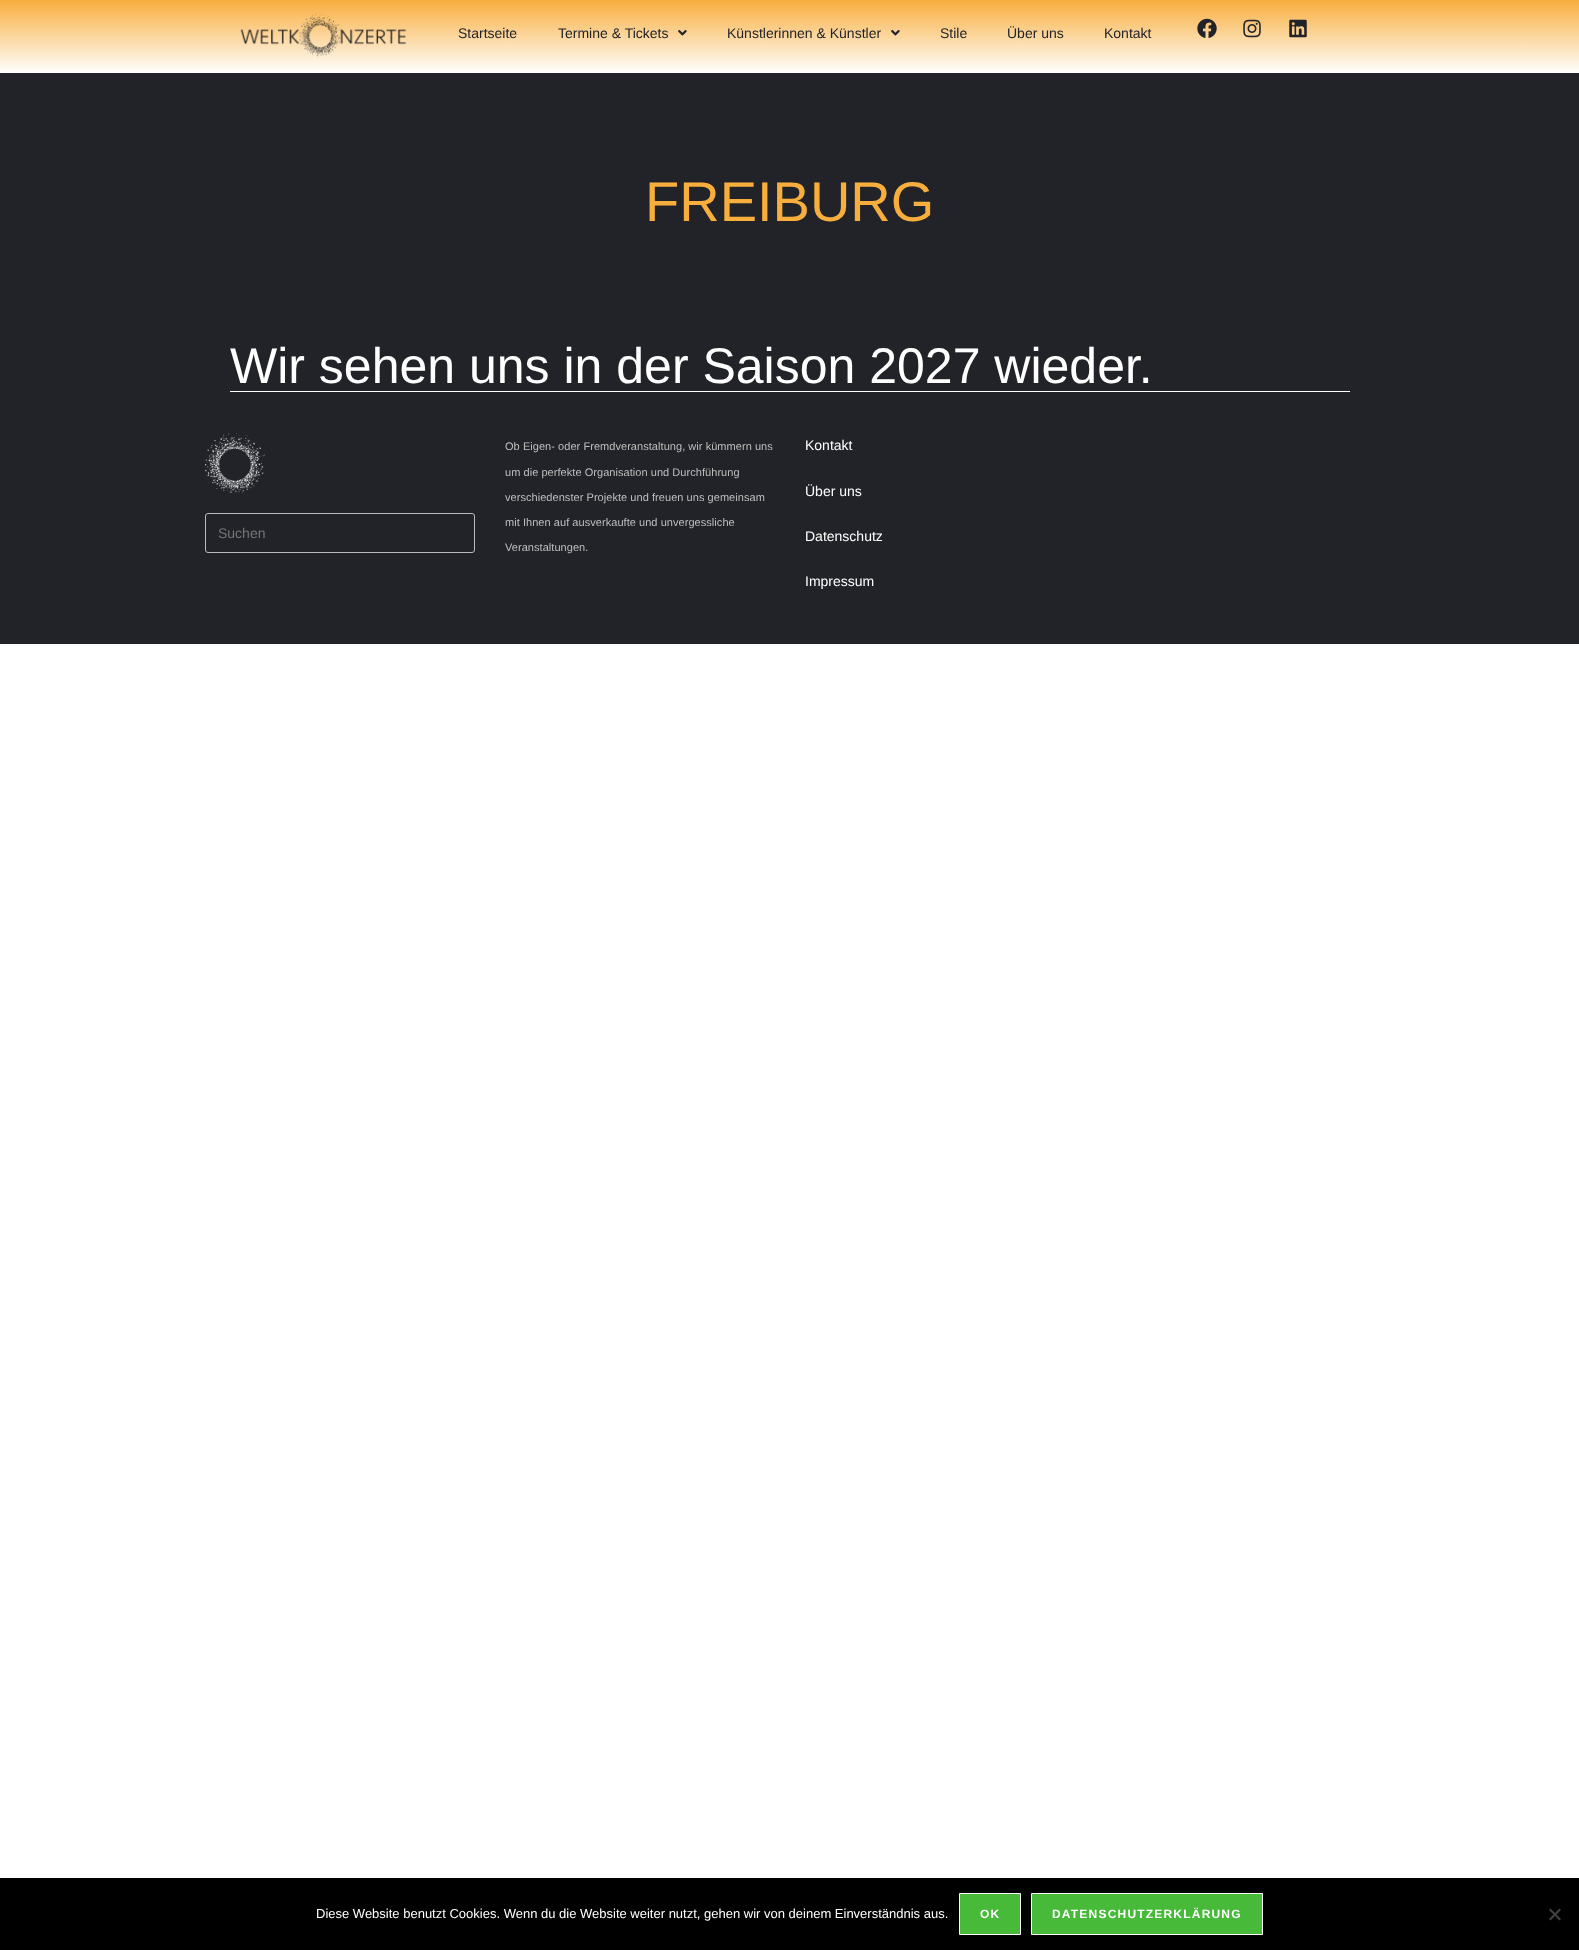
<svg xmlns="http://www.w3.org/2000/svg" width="1579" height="1950">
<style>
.a{font:14px Liberation Sans;fill:#222329}
.b{font:56px Liberation Sans;fill:#f8ae3d}
.c{font:50px Liberation Sans;fill:#fff}
.d{font:14px Liberation Sans;fill:#757575}
.e{font:11px Liberation Sans;letter-spacing:0.05px;fill:#bfbfbf}
.f{font:14px Liberation Sans;fill:#fff}
.g{font:13px Liberation Sans;fill:#fff}
.h{font:bold 12px Liberation Sans;letter-spacing:1.2px;fill:#fff}
</style>
<defs>
<linearGradient id="g1" gradientUnits="userSpaceOnUse" x1="790" y1="0" x2="790" y2="73"><stop offset="0" stop-color="#f8ae3d"/><stop offset="1" stop-color="#fff"/></linearGradient>
</defs>
<rect width="100%" height="100%" fill="#fff"/>
<path fill="url(#g1)" d="M0 0h1579v72H0z"/>
<image href="1.png" x="240" y="13" width="167" height="44"/>
<image href="2.png" x="678" y="30" width="9" height="6"/>
<image href="2.png" x="891" y="30" width="9" height="6"/>
<image href="3.png" x="1197" y="18" width="20" height="20"/>
<image href="4.png" x="1243" y="19" width="18" height="19"/>
<image href="5.png" x="1289" y="19" width="18" height="19"/>
<path fill="#222329" d="M0 73h1579v571H0z"/>
<path fill="#fff" d="M230 391h1120v1H230z"/>
<image href="6.png" x="205" y="433" width="60" height="60"/>
<rect fill="none" stroke="#bbb" x="205.5" y="513.5" width="269" height="39" rx="2.5"/>
<path fill="#000" d="M0 1878h1579v72H0z"/>
<path fill="#48ba39" stroke="#fff" d="M959.5 1893.5h61v41H959.5z"/>
<path fill="#48ba39" stroke="#fff" d="M1031.5 1893.5h231v41H1031.5z"/>
<path fill="#404040" d="M1559.5 1908.5l1.5 1.5l-10.5 10.5l-1.5-1.5z"/>
<path fill="#404040" d="M1549 1910l1.5-1.5l10.5 10.5l-1.5 1.5z"/>
<text class="a" x="458" y="38">Startseite</text>
<text class="a" x="558" y="38">Termine &amp; Tickets</text>
<text class="a" x="727" y="38">Künstlerinnen &amp; Künstler</text>
<text class="a" x="940" y="38">Stile</text>
<text class="a" x="1007" y="38">Über uns</text>
<text class="a" x="1104" y="38">Kontakt</text>
<text class="b" x="645" y="221">FREIBURG</text>
<text class="c" x="230" y="383">Wir sehen uns in der Saison 2027 wieder.</text>
<text class="d" x="218" y="538">Suchen</text>
<text class="e" x="505" y="450">Ob Eigen- oder Fremdveranstaltung, wir kümmern uns</text>
<text class="e" x="505" y="476">um die perfekte Organisation und Durchführung</text>
<text class="e" x="505" y="501">verschiedenster Projekte und freuen uns gemeinsam</text>
<text class="e" x="505" y="526">mit Ihnen auf ausverkaufte und unvergessliche</text>
<text class="e" x="505" y="551">Veranstaltungen.</text>
<text class="f" x="805" y="450">Kontakt</text>
<text class="f" x="805" y="496">Über uns</text>
<text class="f" x="805" y="541">Datenschutz</text>
<text class="f" x="805" y="586">Impressum</text>
<text class="g" x="316" y="1918">Diese Website benutzt Cookies. Wenn du die Website weiter nutzt, gehen wir von deinem Einverständnis aus.</text>
<text class="h" x="980" y="1918">OK</text>
<text class="h" x="1052" y="1918">DATENSCHUTZERKLÄRUNG</text>
</svg>
